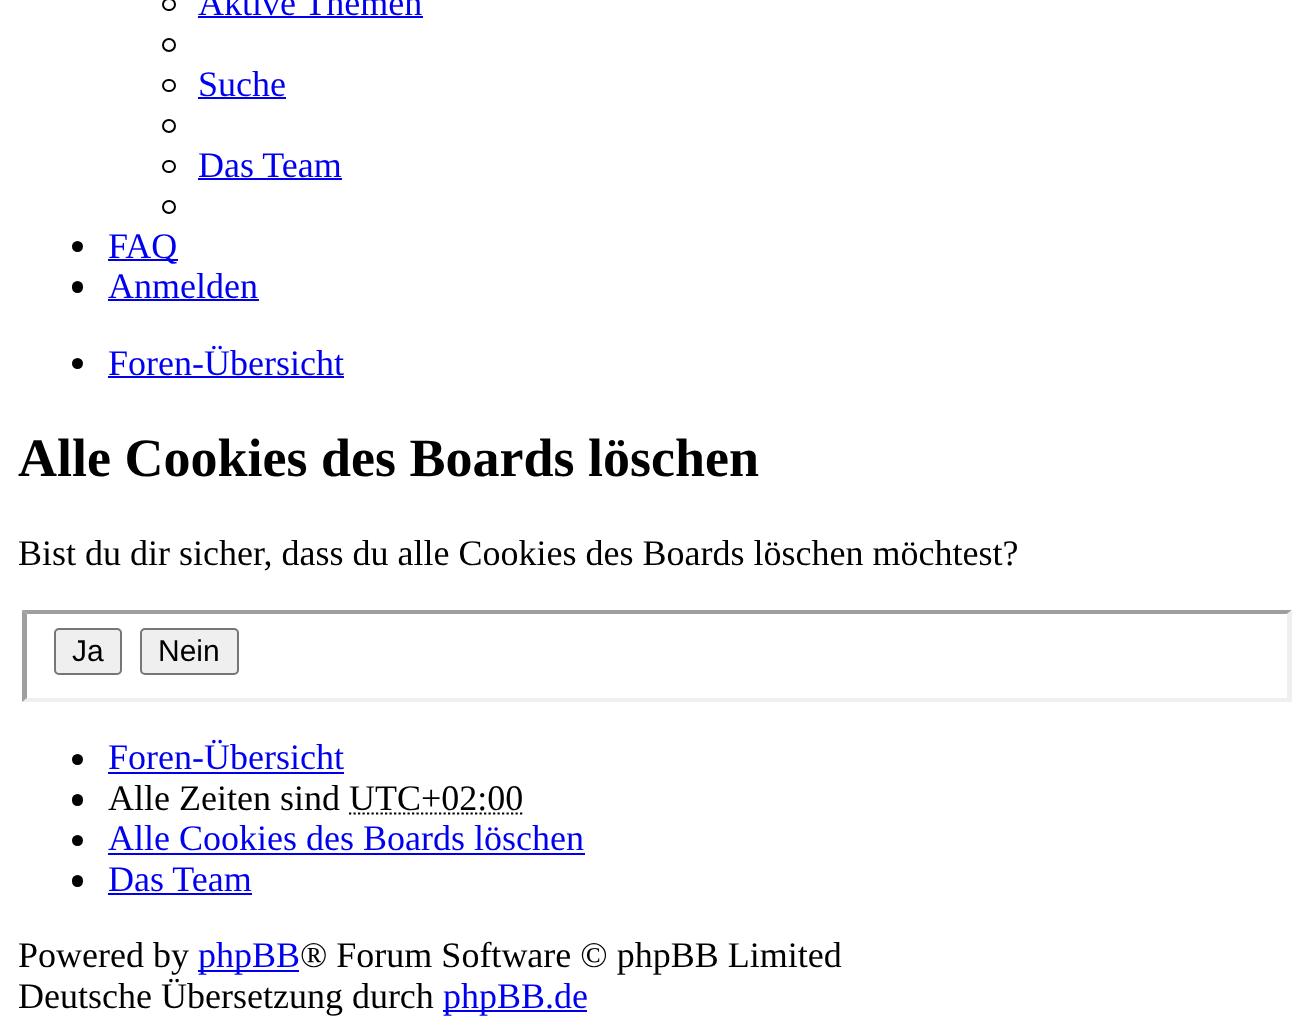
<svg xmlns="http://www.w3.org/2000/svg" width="1313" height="1022">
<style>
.a{font:36px Liberation Serif;fill:#00e}
.b{font:bold 54px Liberation Serif;fill:#000}
.c{font:36px Liberation Serif;fill:#000}
.d{font:30px Liberation Sans;fill:#000}
</style>
<rect width="100%" height="100%" fill="#fff"/>
<rect fill="none" stroke="#000" stroke-width="2" x="163" y="-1" width="12" height="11" rx="5.5"/>
<path fill="#00e" d="M198 16h225v2H198z"/>
<circle fill="none" stroke="#000" stroke-width="2" cx="169" cy="45" r="6"/>
<rect fill="none" stroke="#000" stroke-width="2" x="163" y="80" width="12" height="11" rx="5.5"/>
<path fill="#00e" d="M198 97h88v2H198z"/>
<circle fill="none" stroke="#000" stroke-width="2" cx="169" cy="126" r="6"/>
<rect fill="none" stroke="#000" stroke-width="2" x="163" y="161" width="12" height="11" rx="5.5"/>
<path fill="#00e" d="M198 178h144v2H198z"/>
<circle fill="none" stroke="#000" stroke-width="2" cx="169" cy="207" r="6"/>
<circle fill="#000" cx="77.5" cy="246.5" r="5.5"/>
<path fill="#00e" d="M108 259h70v2H108z"/>
<rect fill="#000" x="72" y="281" width="11" height="12" rx="5.5"/>
<path fill="#00e" d="M108 299h151v2H108z"/>
<circle fill="#000" cx="77.5" cy="363.5" r="5.5"/>
<path fill="#00e" d="M108 376h236v2H108z"/>
<path fill="#9f9f9f" d="M22 610h1270l-5 4h-1260z"/>
<path fill="#efefef" d="M1292 610v92l-5-4v-84z"/>
<path fill="#efefef" d="M1292 702h-1270l5-4h1260z"/>
<path fill="#9f9f9f" d="M22 702v-92l5 4v84z"/>
<rect fill="#efefef" stroke="#767676" stroke-width="2" x="55" y="629" width="66" height="45" rx="4"/>
<rect fill="#efefef" stroke="#767676" stroke-width="2" x="141" y="629" width="97" height="45" rx="4"/>
<circle fill="#000" cx="77.5" cy="759.5" r="5.5"/>
<path fill="#00e" d="M108 772h236v2H108z"/>
<rect fill="#000" x="72" y="794" width="11" height="12" rx="5.5"/>
<path fill="none" stroke="#000" stroke-width="2.2" stroke-dasharray="2.25 2.25" d="M349 813.5h174.5"/>
<circle fill="#000" cx="77.5" cy="840.5" r="5.5"/>
<path fill="#00e" d="M108 853h477v2H108z"/>
<rect fill="#000" x="72" y="875" width="11" height="12" rx="5.5"/>
<path fill="#00e" d="M108 893h144v2H108z"/>
<path fill="#00e" d="M198 970h101v2H198z"/>
<path fill="#00e" d="M443 1010h144v2H443z"/>
<text class="a" x="198" y="15">Aktive Themen</text>
<text class="a" x="198" y="96">Suche</text>
<text class="a" x="198" y="177">Das Team</text>
<text class="a" x="108" y="258">FAQ</text>
<text class="a" x="108" y="298">Anmelden</text>
<text class="a" x="108" y="375">Foren-Übersicht</text>
<text class="b" x="18" y="476">Alle Cookies des Boards löschen</text>
<text class="c" x="18" y="565">Bist du dir sicher, dass du alle Cookies des Boards löschen möchtest?</text>
<text class="d" x="72" y="661">Ja</text>
<text class="d" x="158" y="661">Nein</text>
<text class="a" x="108" y="769">Foren-Übersicht</text>
<text class="c" x="108" y="810">Alle Zeiten sind UTC+02:00</text>
<text class="a" x="108" y="850">Alle Cookies des Boards löschen</text>
<text class="a" x="108" y="891">Das Team</text>
<text class="c" x="18" y="967">Powered by</text>
<text class="a" x="198" y="967">phpBB</text>
<text class="c" x="300" y="967">® Forum Software © phpBB Limited</text>
<text class="c" x="18" y="1008">Deutsche Übersetzung durch</text>
<text class="a" x="443" y="1008">phpBB.de</text>
</svg>
